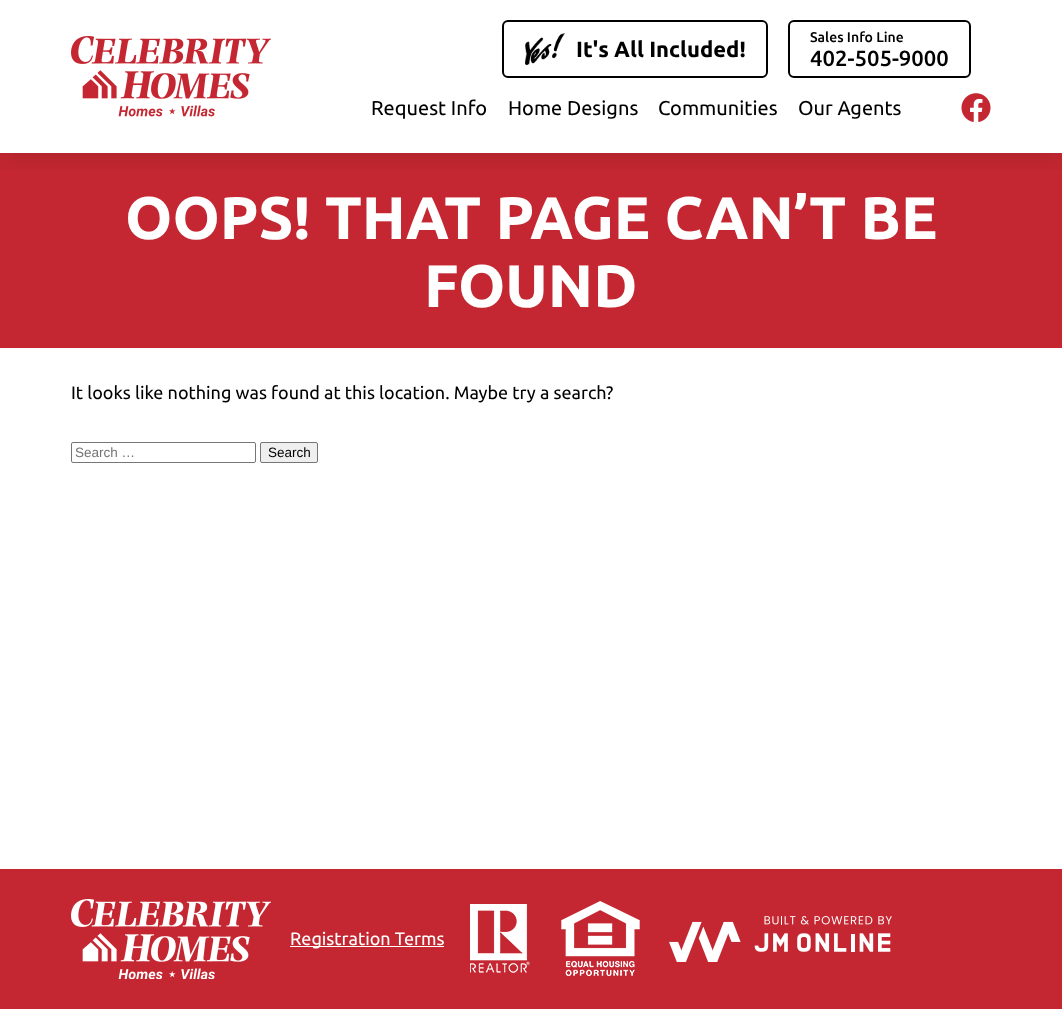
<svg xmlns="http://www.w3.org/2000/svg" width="1062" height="1009">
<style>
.a{font:bold 22px Ubuntu;fill:#000}
.b{font:500 14px Ubuntu;fill:#000}
.c{font:500 22px Ubuntu;fill:#000}
.d{font:20px Ubuntu;fill:#000}
.e{font:bold 60px Ubuntu;fill:#fff}
.f{font:18px Ubuntu;fill:#000}
.g{font:13.5px Liberation Sans;fill:#757575}
.h{font:13.5px Liberation Sans;fill:#000}
.i{font:18px Ubuntu;fill:#fff}
</style>
<defs>
<clipPath id="clip1"><path d="M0 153h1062v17H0z"/></clipPath>
</defs>
<rect width="100%" height="100%" fill="#fff"/>
<path fill="#c42731" d="M0 153h1062v195H0z"/>
<g clip-path="url(#clip1)">
<path fill="#00000026" filter="blur(15px)" d="M0 0h1062v153H0z"/>
</g>
<image href="1.png" x="71" y="36" width="200" height="81"/>
<rect fill="none" stroke="#000" stroke-width="2" x="503" y="21" width="264" height="56" rx="5"/>
<image href="2.png" x="525" y="33" width="40" height="32"/>
<rect fill="none" stroke="#000" stroke-width="2" x="789" y="21" width="181" height="56" rx="5"/>
<image href="3.png" x="961" y="93" width="30" height="29"/>
<rect fill="none" stroke="#767676" x="71.5" y="442.5" width="184" height="20" rx="1.5"/>
<rect fill="#efefef" stroke="#767676" x="260.5" y="442.5" width="57" height="20" rx="1.5"/>
<path fill="#c42731" d="M0 869h1062v140H0z"/>
<image href="4.png" x="71" y="899" width="200" height="80"/>
<path fill="#fff" d="M290 946h154v1H290z"/>
<image href="5.png" x="470" y="904" width="60" height="69"/>
<image href="6.png" x="561" y="901" width="79" height="75"/>
<image href="7.png" x="669" y="916" width="223" height="46"/>
<text class="a" x="576" y="57">It's All Included!</text>
<text class="b" x="810" y="42">Sales Info Line</text>
<text class="c" x="810" y="66">402-505-9000</text>
<text class="d" x="371" y="115">Request Info</text>
<text class="d" x="508" y="115">Home Designs</text>
<text class="d" x="658" y="115">Communities</text>
<text class="d" x="798" y="115">Our Agents</text>
<text class="e" x="125" y="239">OOPS! THAT PAGE CAN’T BE</text>
<text class="e" x="424" y="307">FOUND</text>
<text class="f" x="71" y="399">It looks like nothing was found at this location. Maybe try a search?</text>
<text class="g" x="75" y="457">Search …</text>
<text class="h" x="268" y="457">Search</text>
<text class="i" x="290" y="945">Registration Terms</text>
</svg>
